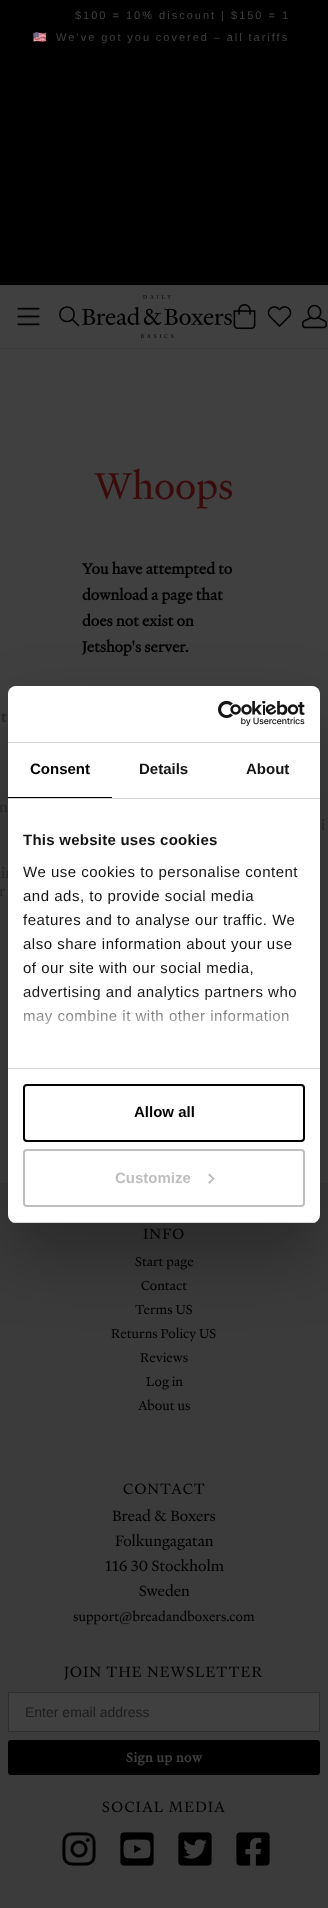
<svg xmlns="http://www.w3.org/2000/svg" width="328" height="1908">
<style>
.a{font:11px Liberation Sans;letter-spacing:2px;fill:#404040}
.b{font:11px Noto Color Emoji;letter-spacing:2px;fill:#404040}
.c{font:40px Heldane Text;fill:#3a0b0b}
.d{font:bold 16px Heldane Text;fill:#000}
.e{font:bold 16px Heldane Text;fill:#262626}
.f{font:16px Heldane Text;fill:#262626}
.g{font:16px Heldane Text;letter-spacing:1px;fill:#000}
.h{font:14px Heldane Text;fill:#000}
.i{font:16px Heldane Text;fill:#000}
.j{font:14px Liberation Sans;fill:#1d1d1d}
.k{font:bold 14px Heldane Text;letter-spacing:0.5px;fill:#404040}
.l{font:bold 15px Liberation Sans;fill:#000}
.m{font:bold 15px Liberation Sans;fill:#141414}
.n{font:bold 15px Liberation Sans;letter-spacing:0.25px;fill:#141414}
.o{font:15px Liberation Sans;letter-spacing:0.5px;fill:#141414}
.p{font:bold 15px Liberation Sans;fill:#bebebe}
</style>
<defs>
<linearGradient id="g1" gradientUnits="userSpaceOnUse" x1="158" y1="1068" x2="158" y2="993"><stop offset="0" stop-color="#fff"/><stop offset="0.5" stop-color="#fff" stop-opacity="0.8"/><stop offset="1" stop-color="#fff" stop-opacity="0"/></linearGradient>
<clipPath id="clip1"><rect x="8" y="686" width="312" height="537" rx="8"/></clipPath>
</defs>
<rect width="100%" height="100%" fill="#404040"/>
<path fill="#000" d="M0 0h328v285H0z"/>
<path fill="#3b3b3b" d="M0 348h328v1H0z"/>
<image href="1.png" x="17" y="307" width="23" height="19"/>
<path fill="none" stroke="#000" stroke-width="1.6" stroke-linecap="round" stroke-linejoin="round" d="M67 321.5c9.5 0 9.5-14.5 0-14.5c-9.5 0-9.5 14.5 0 14.5zm11.5 4l-6-6"/>
<image href="2.png" x="82" y="295" width="150" height="43"/>
<image href="3.png" x="233" y="304" width="23" height="25"/>
<image href="4.png" x="267" y="306" width="25" height="21"/>
<image href="5.png" x="302" y="304" width="25" height="25"/>
<path fill="#3b3b3b" d="M0 1183h328v725H0z"/>
<path fill="#404040" stroke="#302f2f" d="M8.5 1692.5h311v39H8.5z"/>
<rect fill="#000" x="8" y="1740" width="312" height="35" rx="3"/>
<image href="6.png" x="62" y="1832" width="34" height="34"/>
<image href="7.png" x="120" y="1832" width="34" height="34"/>
<image href="8.png" x="178" y="1832" width="34" height="34"/>
<image href="9.png" x="236" y="1832" width="34" height="34"/>
<rect fill="#0000004d" filter="blur(34px)" x="8" y="718" width="312" height="537" rx="8"/>
<text class="a" x="75" y="19">$100 = 10% discount | $150 = 1</text>
<text class="b" x="33" y="41">🇺🇸</text>
<text class="a" x="56" y="41" word-spacing="-0.25">We’ve got you covered – all tariffs</text>
<text class="c" x="94" y="499">Whoops</text>
<text class="d" x="82" y="574">You have attempted to</text>
<text class="d" x="82" y="600">download a page that</text>
<text class="d" x="82" y="626">does not exist on</text>
<text class="d" x="82" y="652">Jetshop's server.</text>
<text class="e" x="1" y="722">t</text>
<text class="f" x="-1" y="812">n</text>
<text class="f" x="321" y="830">i</text>
<text class="f" x="1" y="878">ir</text>
<text class="f" x="-1" y="896">r</text>
<text class="g" x="143" y="1239">INFO</text>
<text class="h" x="135" y="1266">Start page</text>
<text class="h" x="141" y="1290">Contact</text>
<text class="h" x="135" y="1314">Terms US</text>
<text class="h" x="111" y="1338">Returns Policy US</text>
<text class="h" x="140" y="1362">Reviews</text>
<text class="h" x="146" y="1386">Log in</text>
<text class="h" x="138" y="1410">About us</text>
<text class="g" x="123" y="1494">CONTACT</text>
<text class="i" x="112" y="1521">Bread &amp; Boxers</text>
<text class="i" x="115" y="1546">Folkungagatan</text>
<text class="i" x="105" y="1571">116 30 Stockholm</text>
<text class="i" x="139" y="1596">Sweden</text>
<text class="h" x="73" y="1621">support@breadandboxers.com</text>
<text class="g" x="64" y="1677">JOIN THE NEWSLETTER</text>
<text class="j" x="25" y="1717">Enter email address</text>
<text class="k" x="126" y="1762">Sign up now</text>
<text class="g" x="102" y="1812">SOCIAL MEDIA</text>
<rect fill="#fff" x="8" y="686" width="312" height="537" rx="8"/>
<path fill="#d6d6d6" d="M8 742h312v1H8z"/>
<image href="10.png" x="218" y="701" width="87" height="25"/>
<path fill="#d6d6d6" d="M8 798h312v1H8z"/>
<path fill="#000" d="M8 797h104v1H8z"/>
<text class="l" x="30" y="774">Consent</text>
<text class="m" x="139" y="774">Details</text>
<text class="m" x="246" y="774">About</text>
<path fill="#d6d6d6" d="M8 1068h312v1H8z"/>
<text class="n" x="23" y="845">This website uses cookies</text>
<text class="o" x="23" y="877">We use cookies to personalise content</text>
<text class="o" x="23" y="901">and ads, to provide social media</text>
<text class="o" x="23" y="925">features and to analyse our traffic. We</text>
<text class="o" x="23" y="949">also share information about your use</text>
<text class="o" x="23" y="973">of our site with our social media,</text>
<text class="o" x="23" y="997">advertising and analytics partners who</text>
<text class="o" x="23" y="1021">may combine it with other information</text>
<path fill="url(#g1)" d="M23 994h273v31H23z"/>
<g clip-path="url(#clip1)">
<path fill="#d6d6d6" d="M8 1222h312v1H8z"/>
</g>
<rect fill="none" stroke="#000" stroke-width="2" x="24" y="1085" width="280" height="56" rx="3"/>
<text class="l" x="134" y="1117">Allow all</text>
<rect fill="none" stroke="#bebebe" stroke-width="2" x="24" y="1150" width="280" height="56" rx="3"/>
<text class="p" x="115" y="1183">Customize</text>
<path fill="#bebebe" d="M209.5 1173.5l5 5l-1 1.5l-5.5-5z"/>
<path fill="#bebebe" d="M213.5 1177.5l1 1l-5 5.5l-1.5-1.5z"/>
</svg>
